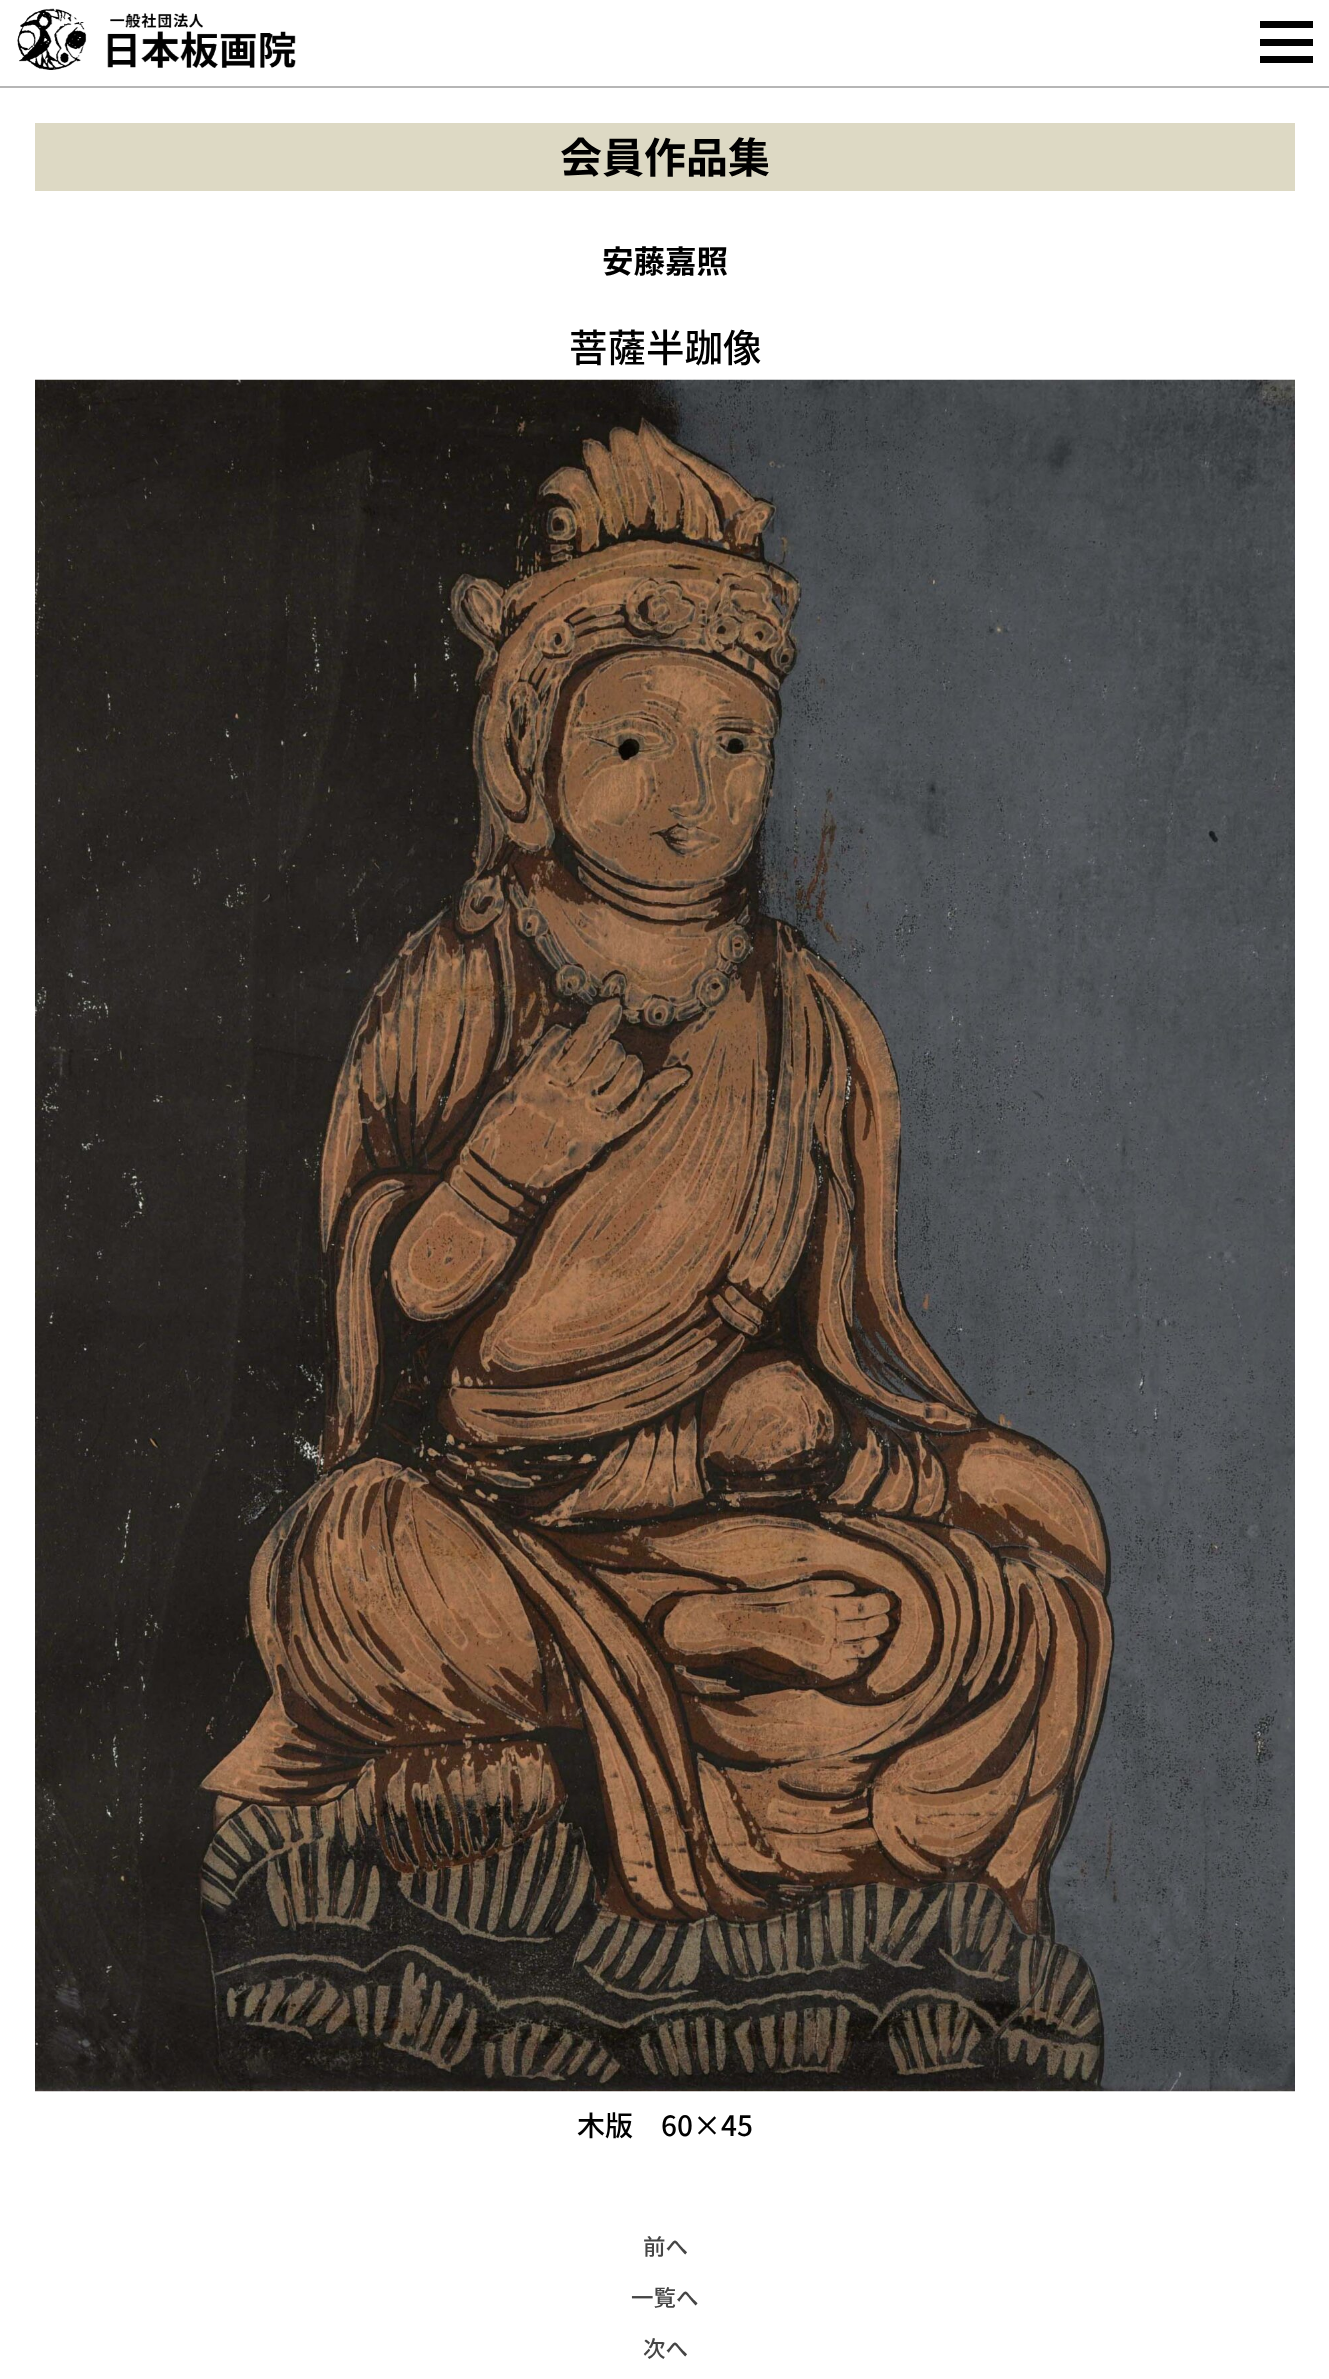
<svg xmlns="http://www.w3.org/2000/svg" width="1329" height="2379">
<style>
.a{font:bold 42px Noto Sans JP;fill:#000}
.b{font:bold 31.5px Noto Sans JP;fill:#000}
.c{font:500 38.5px Noto Sans JP;fill:#000}
.d{font:500 28px Noto Sans JP;fill:#000}
.e{font:500 22.5px Noto Sans JP;fill:#454545}
</style>
<rect width="100%" height="100%" fill="#fff"/>
<path fill="#b6b6b6" d="M0 86h1329v2H0z"/>
<image href="1.png" x="17" y="8" width="279" height="62"/>
<path fill="#000" d="M1260 21h53v7H1260z"/>
<path fill="#000" d="M1260 39h53v7H1260z"/>
<path fill="#000" d="M1260 56h53v7H1260z"/>
<path fill="#ddd9c4" d="M35 123h1260v68H35z"/>
<image href="2.png" x="35" y="379" width="1260" height="1713"/>
<text class="a" x="560" y="173">会員作品集</text>
<text class="b" x="602" y="273">安藤嘉照</text>
<text class="c" x="569" y="362">菩薩半跏像</text>
<text class="d" x="577" y="2136">木版　60×45</text>
<text class="e" x="643" y="2255">前へ</text>
<text class="e" x="631" y="2306">一覧へ</text>
<text class="e" x="643" y="2357">次へ</text>
</svg>
